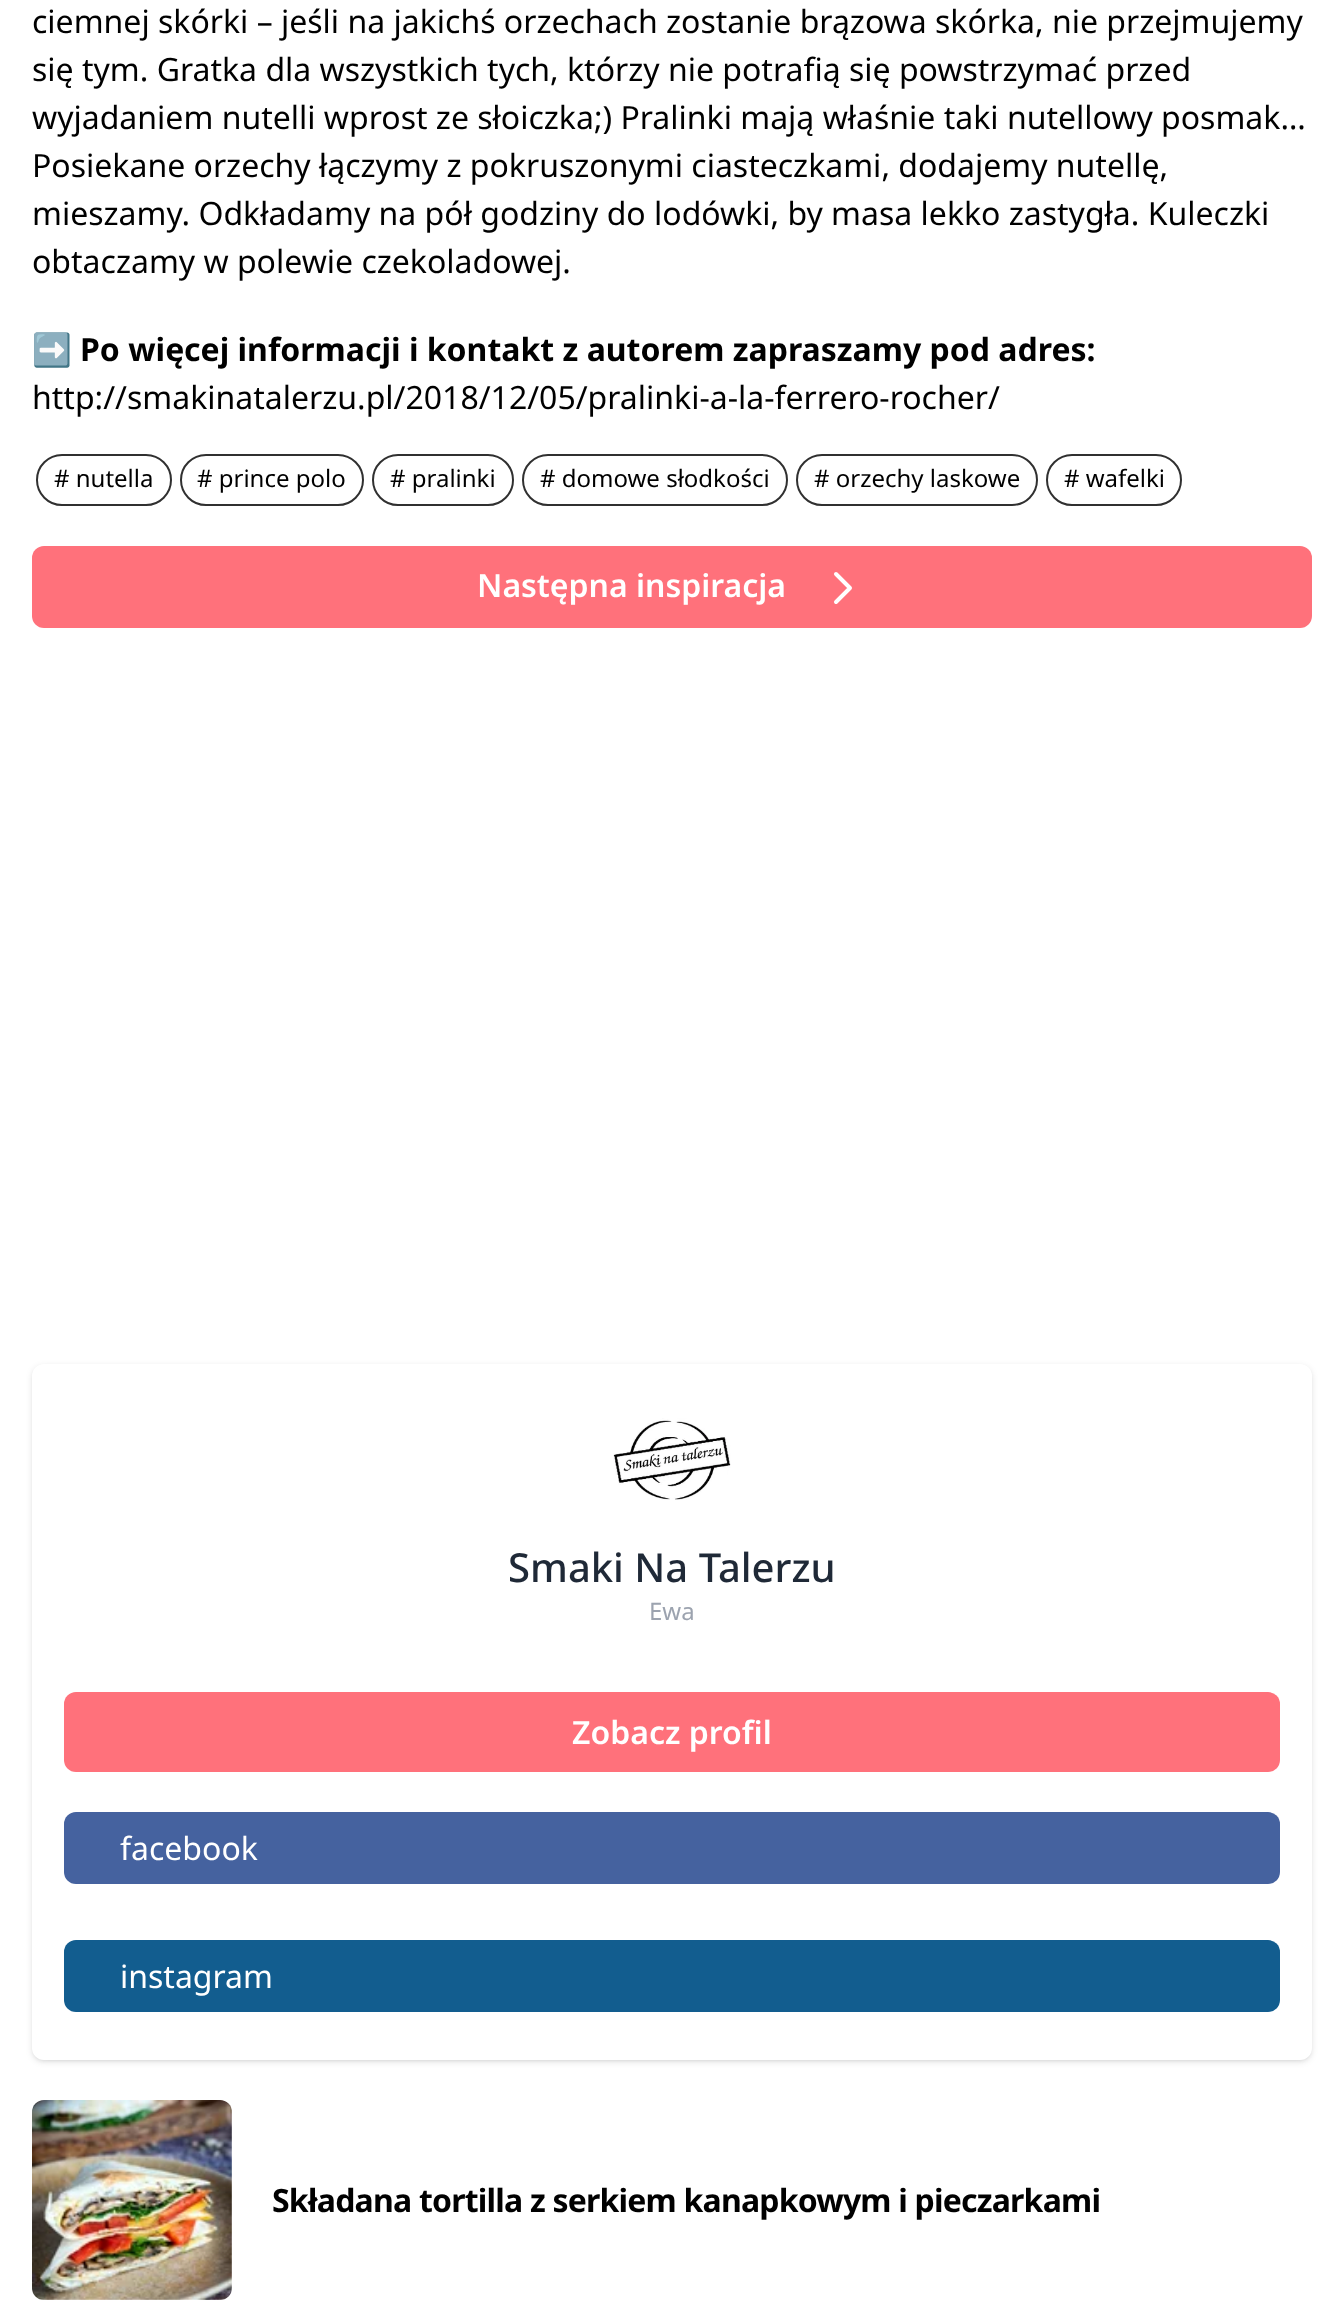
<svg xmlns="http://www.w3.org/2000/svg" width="1343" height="2301">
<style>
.a{font:32px Noto Sans;fill:#000}
.b{font:bold 32px Noto Color Emoji;fill:#000}
.c{font:bold 32px Noto Sans;fill:#000}
.d{font:24px Noto Sans;fill:#000}
.e{font:600 32px Noto Sans;fill:#fff}
.f{font:500 40px Noto Sans;fill:#1f2937}
.g{font:24px Noto Sans;fill:#9ca3af}
.h{font:32px Noto Sans;fill:#fff}
.i{font:bold 32px Noto Sans;letter-spacing:-0.8px;fill:#000}
</style>
<rect width="100%" height="100%" fill="#fff"/>
<rect fill="none" stroke="#303030" stroke-width="2" x="37" y="455" width="134" height="50" rx="25"/>
<rect fill="none" stroke="#303030" stroke-width="2" x="181" y="455" width="182" height="50" rx="25"/>
<rect fill="none" stroke="#303030" stroke-width="2" x="373" y="455" width="140" height="50" rx="25"/>
<rect fill="none" stroke="#303030" stroke-width="2" x="523" y="455" width="264" height="50" rx="25"/>
<rect fill="none" stroke="#303030" stroke-width="2" x="797" y="455" width="240" height="50" rx="25"/>
<rect fill="none" stroke="#303030" stroke-width="2" x="1047" y="455" width="134" height="50" rx="25"/>
<rect fill="#ff717b" x="32" y="546" width="1280" height="82" rx="12"/>
<path fill="none" stroke="#fff" stroke-width="4" stroke-linecap="round" stroke-linejoin="round" d="M836 574l14 14l-14 14"/>
<rect fill="#0000001a" filter="blur(2px)" x="34" y="1368" width="1276" height="692" rx="10"/>
<rect fill="#0000001a" filter="blur(3px)" x="32" y="1366" width="1280" height="696" rx="12"/>
<rect fill="#fff" x="32" y="1364" width="1280" height="696" rx="12"/>
<image href="1.png" x="613" y="1418" width="118" height="82"/>
<rect fill="#ff717b" x="64" y="1692" width="1216" height="80" rx="12"/>
<rect fill="#45629f" x="64" y="1812" width="1216" height="72" rx="12"/>
<rect fill="#125d8f" x="64" y="1940" width="1216" height="72" rx="12"/>
<image href="2.png" x="32" y="2100" width="200" height="200"/>
<text class="a" x="32" y="33">ciemnej skórki – jeśli na jakichś orzechach zostanie brązowa skórka, nie przejmujemy</text>
<text class="a" x="32" y="81">się tym. Gratka dla wszystkich tych, którzy nie potrafią się powstrzymać przed</text>
<text class="a" x="32" y="129">wyjadaniem nutelli wprost ze słoiczka;) Pralinki mają właśnie taki nutellowy posmak…</text>
<text class="a" x="32" y="177">Posiekane orzechy łączymy z pokruszonymi ciasteczkami, dodajemy nutellę,</text>
<text class="a" x="32" y="225">mieszamy. Odkładamy na pół godziny do lodówki, by masa lekko zastygła. Kuleczki</text>
<text class="a" x="32" y="273">obtaczamy w polewie czekoladowej.</text>
<text class="b" x="32" y="361">➡️</text>
<text class="c" x="80" y="361">Po więcej informacji i kontakt z autorem zapraszamy pod adres:</text>
<text class="a" x="32" y="409">http://smakinatalerzu.pl/2018/12/05/pralinki-a-la-ferrero-rocher/</text>
<text class="d" x="54" y="487"># nutella</text>
<text class="d" x="197" y="487"># prince polo</text>
<text class="d" x="390" y="487"># pralinki</text>
<text class="d" x="540" y="487"># domowe słodkości</text>
<text class="d" x="814" y="487"># orzechy laskowe</text>
<text class="d" x="1064" y="487"># wafelki</text>
<text class="e" x="477" y="597">Następna inspiracja</text>
<text class="f" x="508" y="1582">Smaki Na Talerzu</text>
<text class="g" x="649" y="1620">Ewa</text>
<text class="e" x="572" y="1744">Zobacz profil</text>
<text class="h" x="120" y="1860">facebook</text>
<text class="h" x="120" y="1988">instagram</text>
<text class="i" x="272" y="2212">Składana tortilla z serkiem kanapkowym i pieczarkami</text>
</svg>
